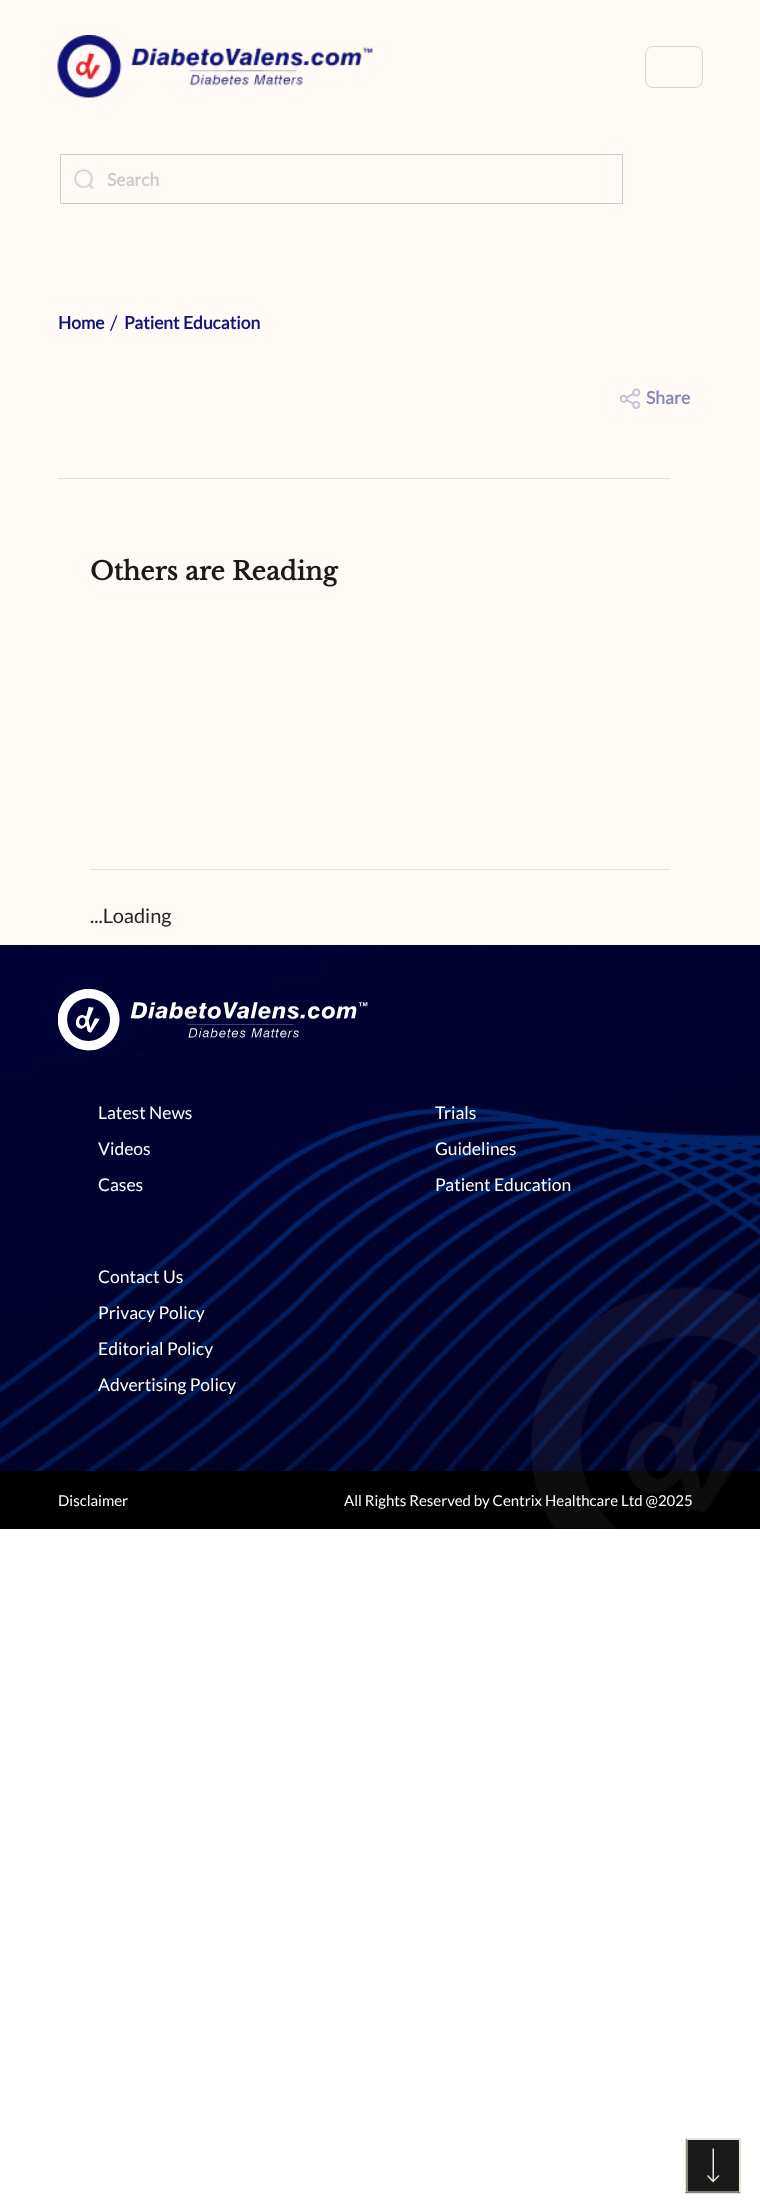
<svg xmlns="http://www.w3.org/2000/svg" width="760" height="2212">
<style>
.a{font:bold 17.5px Lato;fill:#ccc}
.b{font:bold 17.5px Lato;fill:#111478}
.c{font:20px Lato;fill:#111478}
.d{font:bold 17.5px Lato;fill:#8887b7}
.e{font:bold 25px Libre Baskerville;fill:#1a1a1a}
.f{font:20px Lato;fill:#212529}
.g{font:17.5px Lato;fill:#fff}
.h{font:15px Lato;fill:#fff}
</style>
<rect width="100%" height="100%" fill="#fff"/>
<path fill="#fffaf5" d="M0 0h760v945H0z"/>
<image href="1.png" x="57" y="35" width="316" height="63"/>
<rect fill="none" stroke="#d9d5d0" x="645.5" y="46.5" width="57" height="41" rx="7.5"/>
<image href="2.png" x="73" y="168" width="21" height="21"/>
<path fill="none" stroke="#ccc" d="M60.5 154.5h562v49H60.5z"/>
<image href="3.png" x="619" y="388" width="22" height="21"/>
<path fill="#eae0d5" d="M58 478h612v1H58z"/>
<path fill="#eae0d5" d="M90 869h580v1H90z"/>
<image href="4.png" x="0" y="945" width="760" height="526"/>
<image href="5.png" x="58" y="989" width="310" height="62"/>
<path fill="#000" d="M0 1471h760v58H0z"/>
<path fill="#1a1a1a" stroke="#eae0d5" d="M685.5 2138.5h55v55H685.5z"/>
<path fill="none" stroke="#eae0d5" stroke-width="1.1" d="M739.5 2192h-52.5v-52.5h52.5z"/>
<path fill="#eae0d5" d="M712.5 2148.5v31l-4.5-4.5l-1 1l6 6.5l6.5-6.5l-1-1l-4.5 4.5v-31z"/>
<text class="a" x="107" y="186">Search</text>
<text class="b" x="58" y="329">Home</text>
<text class="c" x="110" y="330">/</text>
<text class="b" x="124" y="329">Patient Education</text>
<text class="d" x="646" y="404">Share</text>
<text class="e" x="90" y="580">Others are Reading</text>
<text class="f" x="90" y="923">...Loading</text>
<text class="g" x="98" y="1119">Latest News</text>
<text class="g" x="98" y="1155">Videos</text>
<text class="g" x="98" y="1191">Cases</text>
<text class="g" x="435" y="1119">Trials</text>
<text class="g" x="435" y="1155">Guidelines</text>
<text class="g" x="435" y="1191">Patient Education</text>
<text class="g" x="98" y="1283">Contact Us</text>
<text class="g" x="98" y="1319">Privacy Policy</text>
<text class="g" x="98" y="1355">Editorial Policy</text>
<text class="g" x="98" y="1391">Advertising Policy</text>
<text class="h" x="58" y="1506">Disclaimer</text>
<text class="h" x="344" y="1506">All Rights Reserved by Centrix Healthcare Ltd @2025</text>
<image href="6.png" x="531" y="1287" width="229" height="242"/>
</svg>
